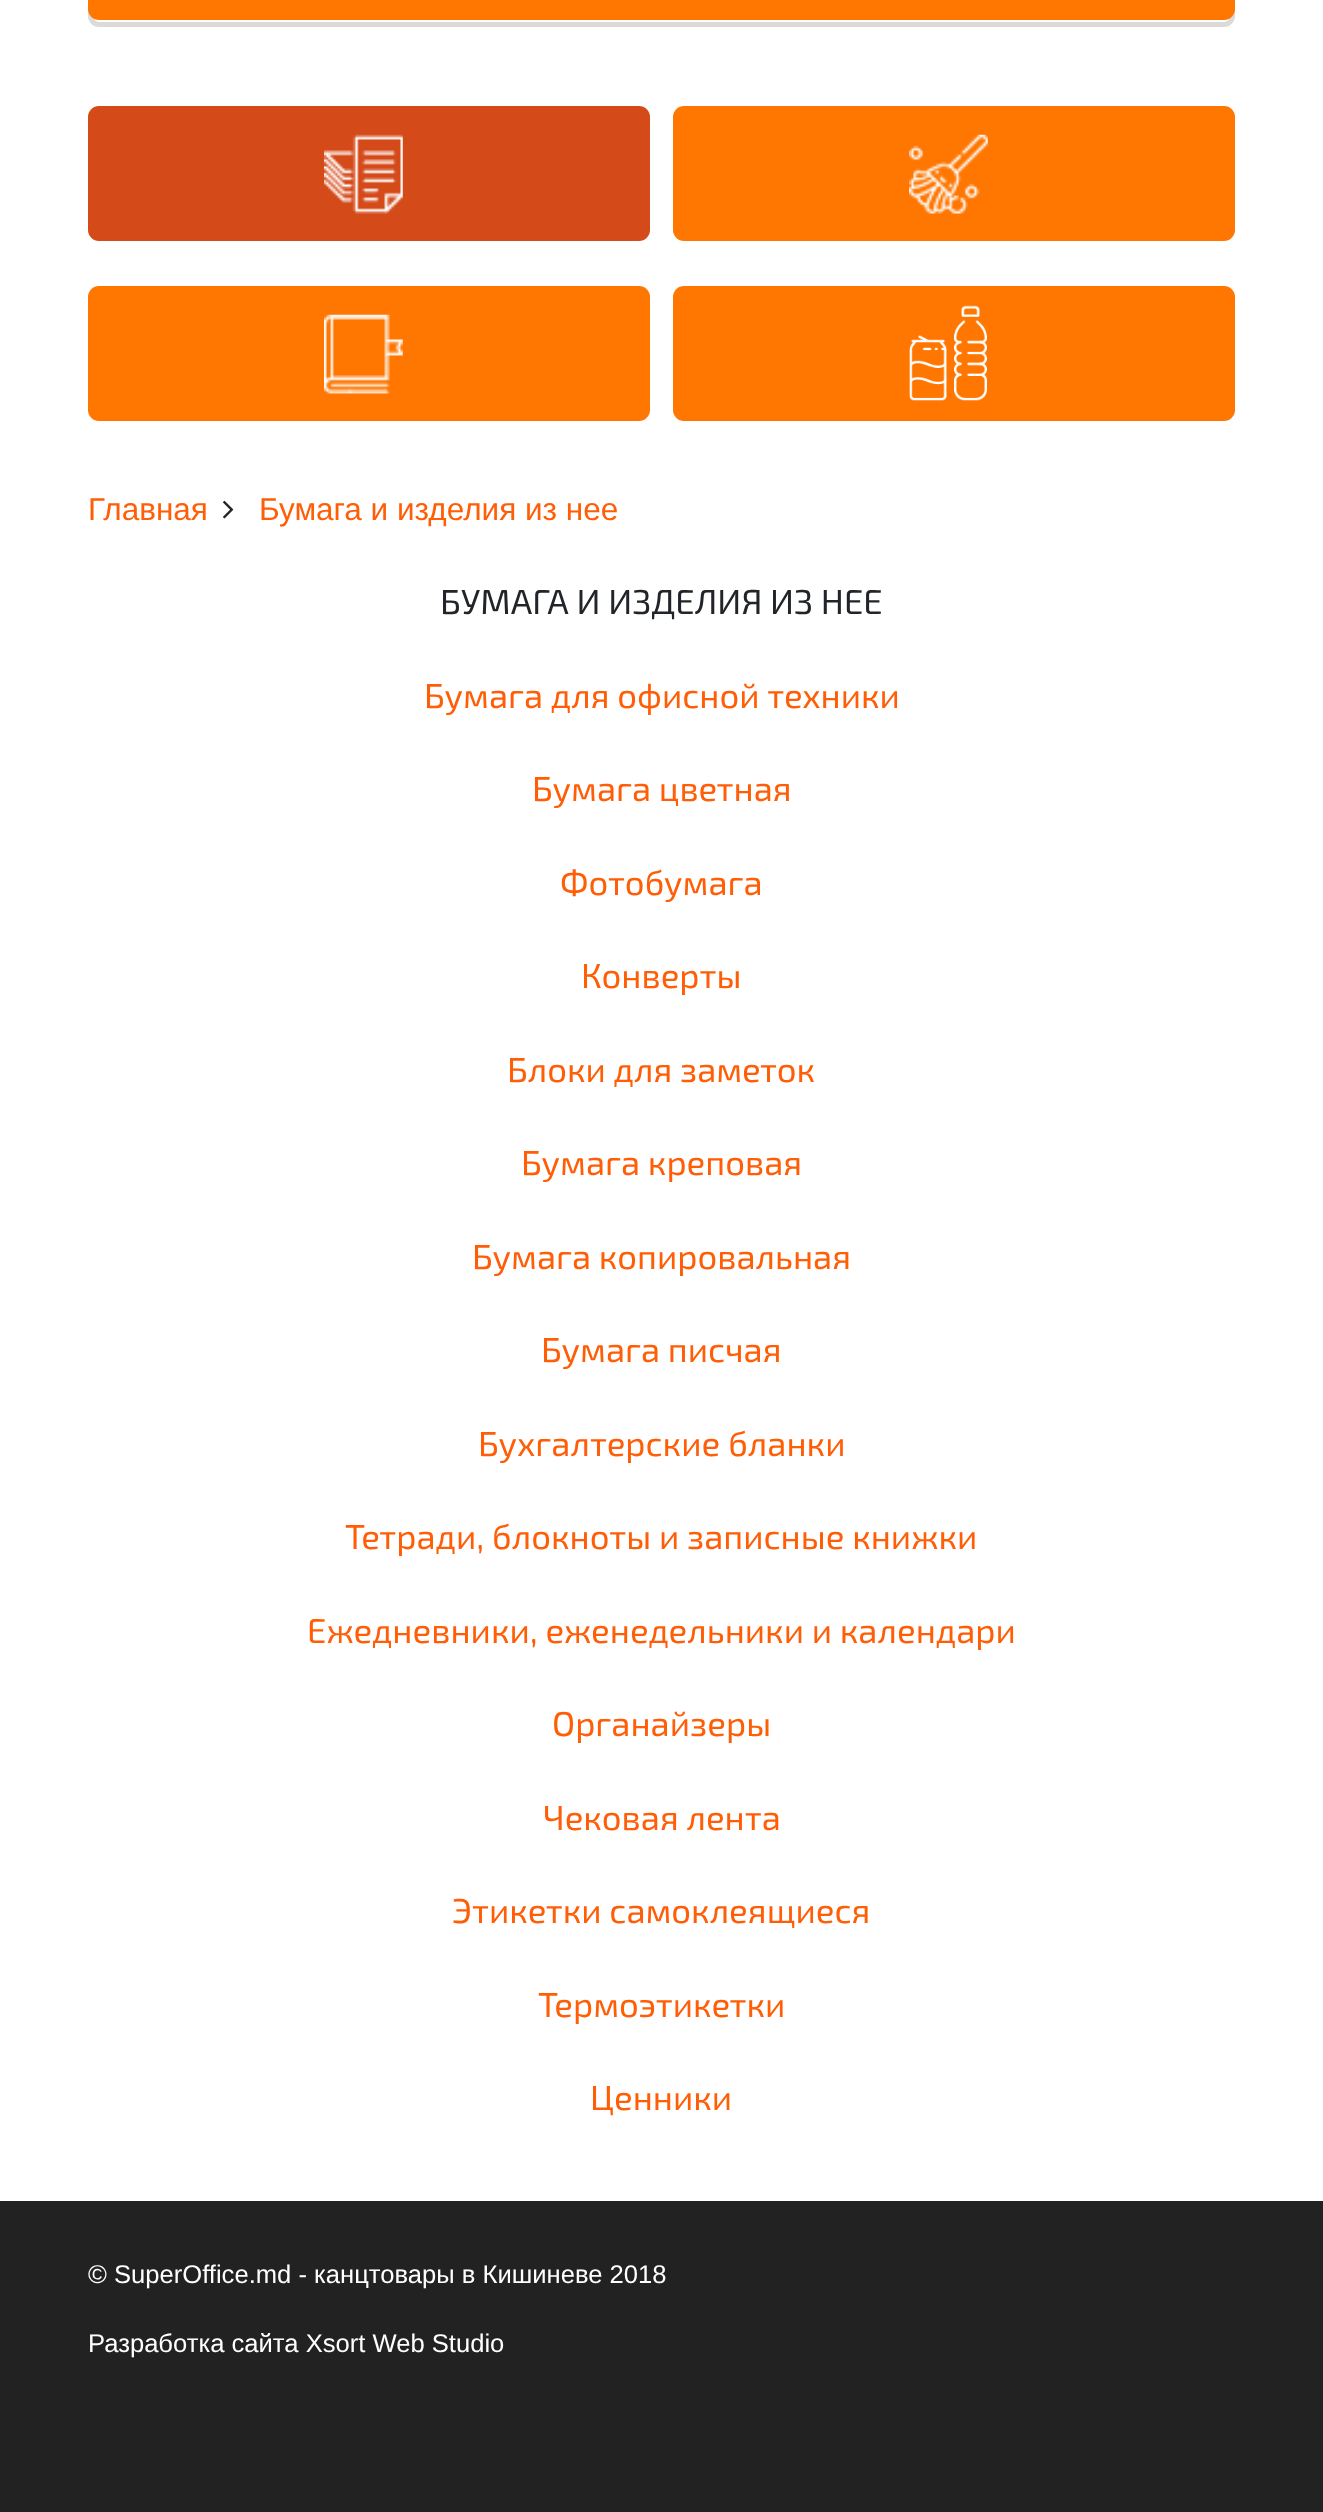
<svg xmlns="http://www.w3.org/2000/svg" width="1323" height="2512">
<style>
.a{font:31.5px Liberation Sans;fill:#ff5d06}
.b{font:34.65px 'Exo 2';fill:#212529}
.c{font:34.65px 'Exo 2';fill:#ff5d06}
.d{font:25.6px Liberation Sans;fill:#fff}
</style>
<rect width="100%" height="100%" fill="#fff"/>
<rect fill="none" stroke="#dcd9d9" stroke-width="5" x="90.5" y="-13.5" width="1142" height="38" rx="8.5"/>
<rect fill="#ff7600" x="88" y="-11" width="1147" height="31" rx="11"/>
<rect fill="#d44a19" x="88" y="106" width="562" height="135" rx="11"/>
<image href="1.png" x="324" y="134" width="79" height="80"/>
<rect fill="#ff7600" x="673" y="106" width="562" height="135" rx="11"/>
<image href="2.png" x="909" y="134" width="79" height="80"/>
<rect fill="#ff7600" x="88" y="286" width="562" height="135" rx="11"/>
<image href="3.png" x="324" y="314" width="79" height="80"/>
<rect fill="#ff7600" x="673" y="286" width="562" height="135" rx="11"/>
<image href="4.png" x="909" y="305" width="78" height="96"/>
<image href="5.png" x="223" y="500" width="11" height="19"/>
<path fill="#222" d="M0 2201h1323v311H0z"/>
<text class="a" x="88" y="520">Главная</text>
<text class="a" x="259" y="520">Бумага и изделия из нее</text>
<text class="b" x="440" y="614">БУМАГА И ИЗДЕЛИЯ ИЗ НЕЕ</text>
<text class="c" x="424" y="708">Бумага для офисной техники</text>
<text class="c" x="532" y="801">Бумага цветная</text>
<text class="c" x="560" y="895">Фотобумага</text>
<text class="c" x="581" y="988">Конверты</text>
<text class="c" x="507" y="1082">Блоки для заметок</text>
<text class="c" x="521" y="1175">Бумага креповая</text>
<text class="c" x="472" y="1269">Бумага копировальная</text>
<text class="c" x="541" y="1362">Бумага писчая</text>
<text class="c" x="478" y="1456">Бухгалтерские бланки</text>
<text class="c" x="345" y="1549">Тетради, блокноты и записные книжки</text>
<text class="c" x="307" y="1643">Ежедневники, еженедельники и календари</text>
<text class="c" x="552" y="1736">Органайзеры</text>
<text class="c" x="543" y="1830">Чековая лента</text>
<text class="c" x="452" y="1923">Этикетки самоклеящиеся</text>
<text class="c" x="538" y="2017">Термоэтикетки</text>
<text class="c" x="590" y="2110">Ценники</text>
<text class="d" x="88" y="2283">© SuperOffice.md - канцтовары в Кишиневе 2018</text>
<text class="d" x="88" y="2352">Разработка сайта Xsort Web Studio</text>
</svg>
